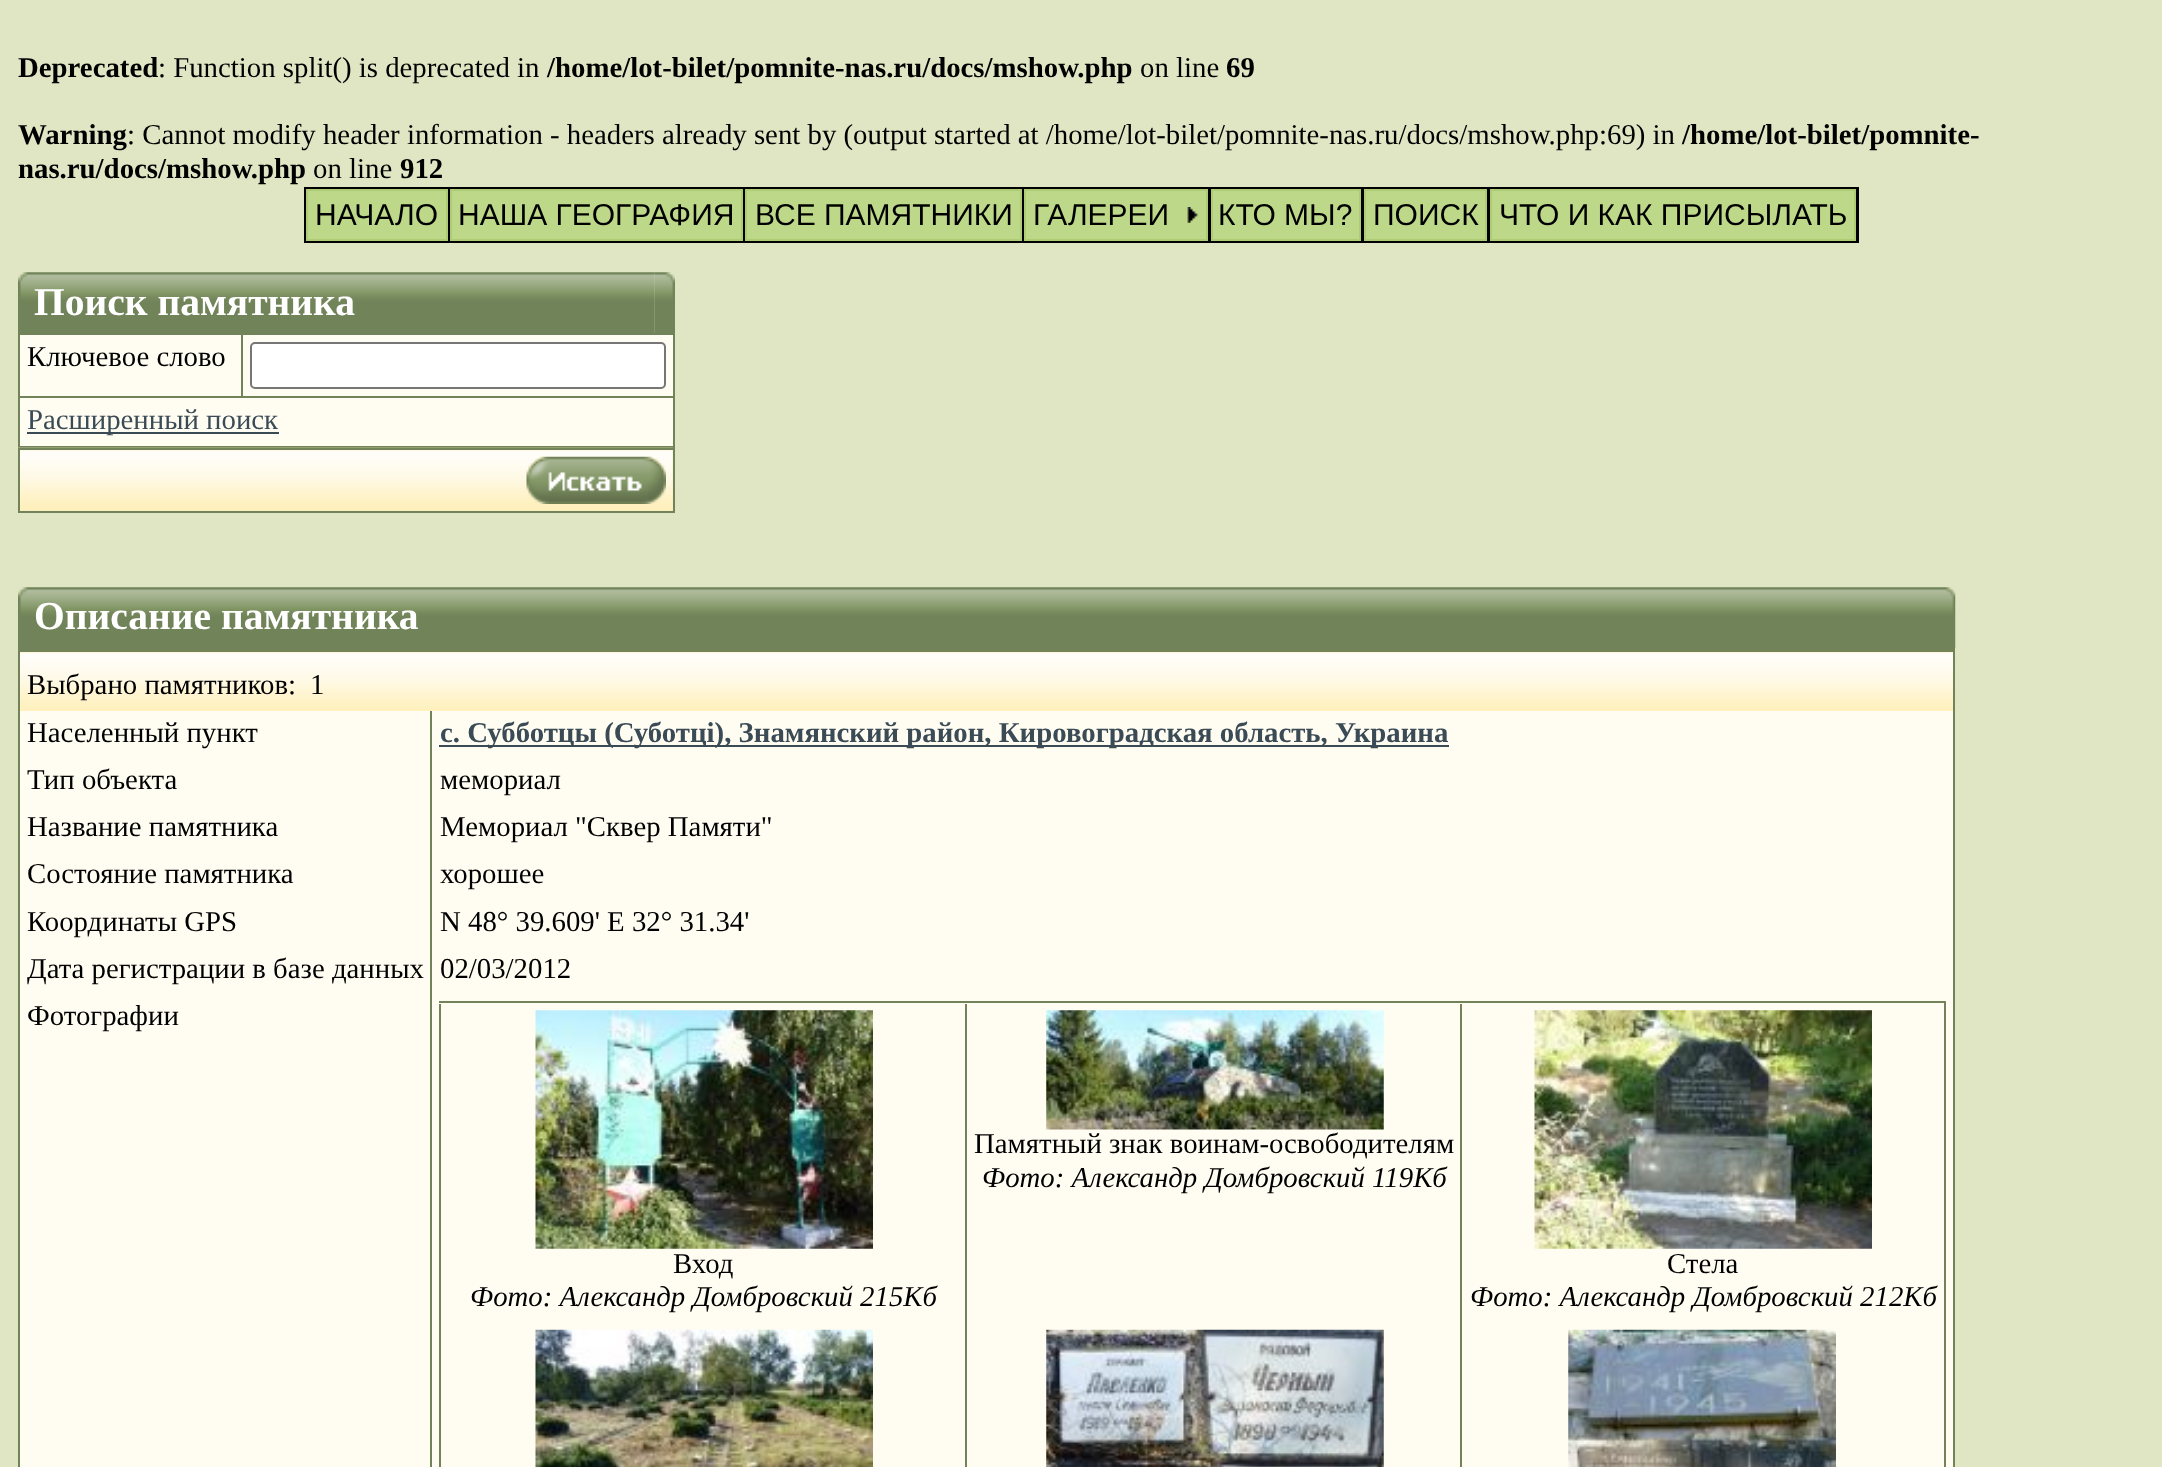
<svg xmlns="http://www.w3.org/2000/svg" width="2162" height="1467">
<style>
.a{font:bold 28.8px Liberation Serif;fill:#000}
.b{font:28.8px Liberation Serif;fill:#000}
.c{font:30px Liberation Sans;fill:#000}
.d{font:bold 39.5px Liberation Serif;fill:#fff}
.e{font:28.8px Liberation Serif;fill:#3a4b56}
.f{font:bold 28.8px Liberation Serif;fill:#3a4b56}
.g{font:italic 28.8px Liberation Serif;fill:#000}
</style>
<rect width="100%" height="100%" fill="#e0e6c3"/>
<path fill="#000" d="M304 187h1555v56H304z"/>
<path fill="#bdd888" stroke="#aecc74" stroke-width="2" d="M307 190h140v50H307z"/>
<path fill="#bdd888" stroke="#aecc74" stroke-width="2" d="M451 190h291v50H451z"/>
<path fill="#bdd888" stroke="#aecc74" stroke-width="2" d="M746 190h275v50H746z"/>
<path fill="#bdd888" stroke="#aecc74" stroke-width="2" d="M1025 190h182v50H1025z"/>
<image href="1.png" x="1187" y="207" width="11" height="16"/>
<path fill="#bdd888" stroke="#aecc74" stroke-width="2" d="M1212 190h148v50H1212z"/>
<path fill="#bdd888" stroke="#aecc74" stroke-width="2" d="M1365 190h121v50H1365z"/>
<path fill="#bdd888" stroke="#aecc74" stroke-width="2" d="M1491 190h364v50H1491z"/>
<image href="2.png" x="18" y="272" width="9" height="61"/>
<image href="3.png" x="27" y="272" width="628" height="61"/>
<image href="4.png" x="654" y="272" width="21" height="61"/>
<path fill="#728359" d="M18 333h657v2H18z"/>
<path fill="#728359" d="M673 333h2v180H673z"/>
<path fill="#728359" d="M18 511h657v2H18z"/>
<path fill="#fffcf2" d="M20 335h221v61H20z"/>
<path fill="#728359" d="M18 335h2v61H18z"/>
<path fill="#fffcf2" d="M243 335h430v61H243z"/>
<path fill="#728359" d="M241 335h2v61H241z"/>
<rect fill="#fff" stroke="#767676" stroke-width="2" x="251" y="343" width="414" height="45" rx="4"/>
<path fill="#fffcf2" d="M20 398h653v48H20z"/>
<path fill="#728359" d="M18 396h655v2H18z"/>
<path fill="#728359" d="M18 446h655v2H18z"/>
<path fill="#728359" d="M18 396h2v52H18z"/>
<path fill="#3a4b56" d="M27 432h252v2H27z"/>
<image href="5.png" x="18" y="447" width="655" height="64"/>
<path fill="#728359" d="M18 448h655v2H18z"/>
<path fill="#728359" d="M18 448h2v63H18z"/>
<image href="6.png" x="526" y="456" width="140" height="48"/>
<image href="2.png" x="18" y="587" width="9" height="61"/>
<image href="7.png" x="27" y="587" width="1908" height="61"/>
<image href="8.png" x="1935" y="587" width="21" height="61"/>
<path fill="#728359" d="M18 648h1937v2H18z"/>
<path fill="#728359" d="M1953 648h2v819H1953z"/>
<image href="9.png" x="20" y="652" width="1933" height="59"/>
<path fill="#728359" d="M18 650h1935v2H18z"/>
<path fill="#728359" d="M18 650h2v817H18z"/>
<path fill="#fffcf2" d="M20 711h410v756H20z"/>
<path fill="#fffcf2" d="M432 711h1521v756H432z"/>
<path fill="#728359" d="M430 711h2v756H430z"/>
<path fill="#3a4b56" d="M439 745h1010v2H439z"/>
<path fill="#728359" d="M439 1001h1507v2H439z"/>
<path fill="#728359" d="M1944 1001h2v466H1944z"/>
<path fill="#728359" d="M965 1004h2v463H965z"/>
<image href="10.png" x="1046" y="1010" width="338" height="120"/>
<path fill="#728359" d="M439 1004h2v463H439z"/>
<image href="11.png" x="535" y="1010" width="338" height="239"/>
<path fill="#728359" d="M1460 1004h2v463H1460z"/>
<image href="12.png" x="1534" y="1010" width="338" height="239"/>
<image href="13.png" x="535" y="1329" width="338" height="138"/>
<image href="14.png" x="1046" y="1329" width="338" height="138"/>
<image href="15.png" x="1568" y="1329" width="268" height="138"/>
<text class="a" x="18" y="77">Deprecated</text>
<text class="b" x="158" y="77">: Function split() is deprecated in</text>
<text class="a" x="547" y="77">/home/lot-bilet/pomnite-nas.ru/docs/mshow.php</text>
<text class="b" x="1140" y="77">on line</text>
<text class="a" x="1226" y="77">69</text>
<text class="a" x="18" y="144">Warning</text>
<text class="b" x="127" y="144">: Cannot modify header information - headers already sent by (output started at /home/lot-bilet/pomnite-nas.ru/docs/mshow.php:69) in</text>
<text class="a" x="1682" y="144">/home/lot-bilet/pomnite-</text>
<text class="a" x="18" y="178">nas.ru/docs/mshow.php</text>
<text class="b" x="313" y="178">on line</text>
<text class="a" x="400" y="178">912</text>
<text class="c" x="315" y="225">НАЧАЛО</text>
<text class="c" x="458" y="225">НАША ГЕОГРАФИЯ</text>
<text class="c" x="755" y="225">ВСЕ ПАМЯТНИКИ</text>
<text class="c" x="1033" y="225">ГАЛЕРЕИ</text>
<text class="c" x="1218" y="225">КТО МЫ?</text>
<text class="c" x="1373" y="225">ПОИСК</text>
<text class="c" x="1499" y="225">ЧТО И КАК ПРИСЫЛАТЬ</text>
<text class="d" x="34" y="315">Поиск памятника</text>
<text class="b" x="27" y="366">Ключевое слово</text>
<text class="e" x="27" y="429">Расширенный поиск</text>
<text class="d" x="34" y="629">Описание памятника</text>
<text class="b" x="27" y="694">Выбрано памятников:</text>
<text class="b" x="310" y="694">1</text>
<text class="b" x="27" y="742">Населенный пункт</text>
<text class="f" x="440" y="742">с. Субботцы (Суботці), Знамянский район, Кировоградская область, Украина</text>
<text class="b" x="27" y="789">Тип объекта</text>
<text class="b" x="440" y="789">мемориал</text>
<text class="b" x="27" y="836">Название памятника</text>
<text class="b" x="440" y="836">Мемориал "Сквер Памяти"</text>
<text class="b" x="27" y="883">Состояние памятника</text>
<text class="b" x="440" y="883">хорошее</text>
<text class="b" x="27" y="931">Координаты GPS</text>
<text class="b" x="440" y="931">N 48° 39.609' E 32° 31.34'</text>
<text class="b" x="27" y="978">Дата регистрации в базе данных</text>
<text class="b" x="440" y="978">02/03/2012</text>
<text class="b" x="27" y="1025">Фотографии</text>
<text class="b" x="974" y="1153">Памятный знак воинам-освободителям</text>
<text class="g" x="982" y="1187">Фото: Александр Домбровский 119Кб</text>
<text class="b" x="673" y="1273">Вход</text>
<text class="g" x="470" y="1306">Фото: Александр Домбровский 215Кб</text>
<text class="b" x="1667" y="1273">Стела</text>
<text class="g" x="1470" y="1306">Фото: Александр Домбровский 212Кб</text>
</svg>
